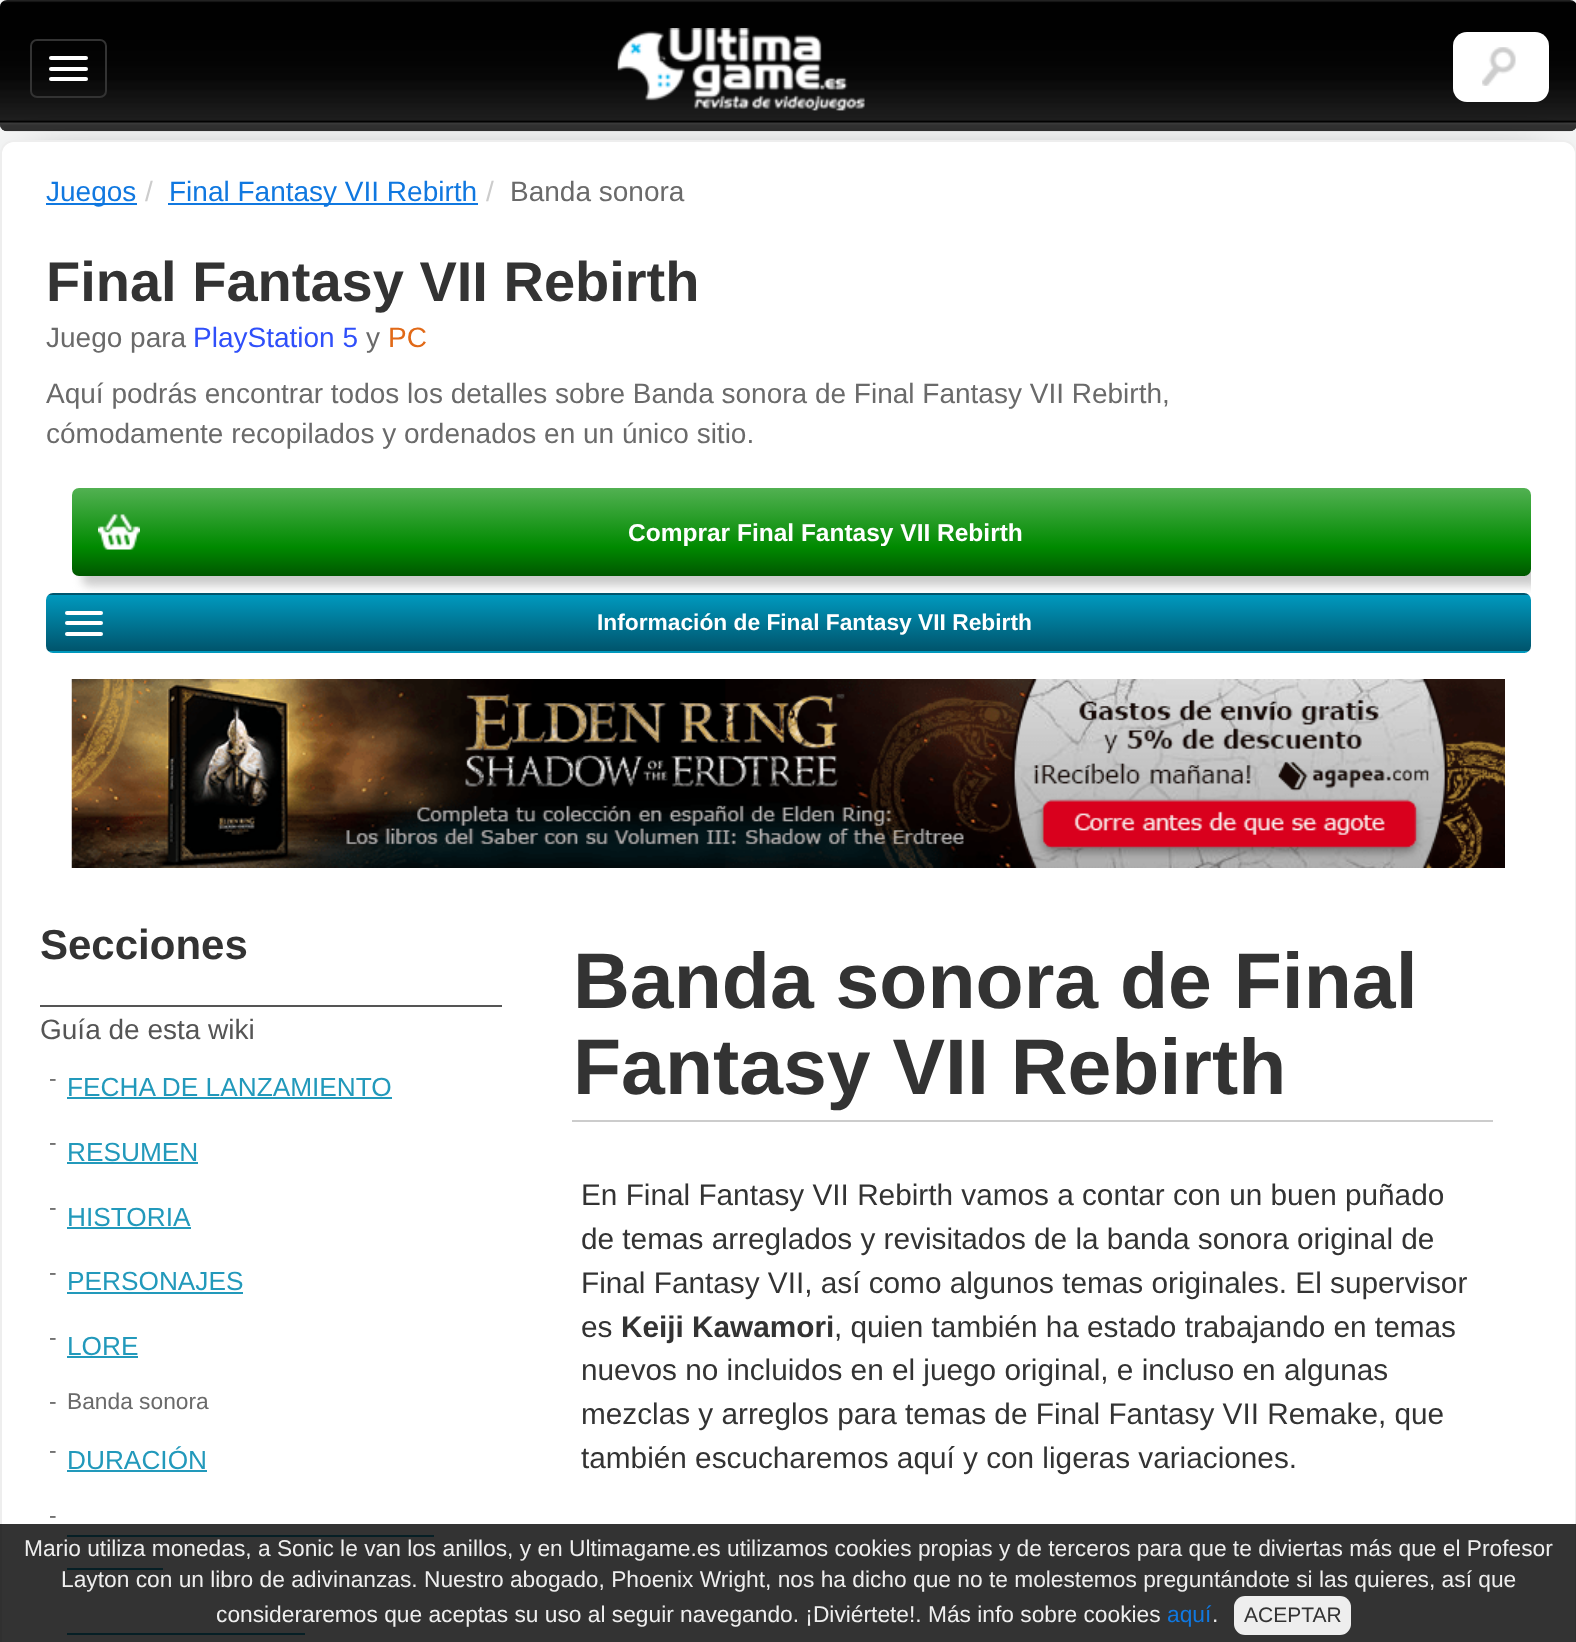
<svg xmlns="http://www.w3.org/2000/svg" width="1576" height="1642">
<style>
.a{font:28px Liberation Sans;fill:#1078e0}
.b{font:28px Liberation Sans;fill:#ccc}
.c{font:28px Liberation Sans;fill:#6a6a6a}
.d{font:bold 56px Liberation Sans;fill:#333}
.e{font:28px Liberation Sans;fill:#2f4ffa}
.f{font:28px Liberation Sans;fill:#e16917}
.g{font:bold 24.5px Liberation Sans;fill:#fff}
.h{font:bold 22.75px Liberation Sans;fill:#fff}
.i{font:bold 42px Liberation Sans;fill:#333}
.j{font:28px Liberation Sans;fill:#555}
.k{font:22.75px Liberation Sans;fill:#6a6a6a}
.l{font:26.25px Liberation Sans;fill:#29b}
.m{font:bold 78.75px Liberation Sans;fill:#333}
.n{font:29.75px Liberation Sans;fill:#333}
.o{font:bold 29.75px Liberation Sans;fill:#333}
.p{font:22.75px Liberation Sans;fill:#eee}
.q{font:22.75px Liberation Sans;fill:#1078e0}
.r{font:21px Liberation Sans;fill:#333}
</style>
<defs>
<clipPath id="clip1"><path d="M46 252h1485v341H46z"/></clipPath>
<linearGradient id="g1" gradientUnits="userSpaceOnUse" x1="802" y1="488" x2="802" y2="576"><stop offset="0" stop-color="#52b152"/><stop offset="0.67" stop-color="#008a00"/><stop offset="1" stop-color="#005700"/></linearGradient>
<clipPath id="clip2"><rect x="46" y="593" width="1485" height="60" rx="7"/></clipPath>
<linearGradient id="g2" gradientUnits="userSpaceOnUse" x1="788" y1="539" x2="788" y2="595"><stop offset="0" stop-color="#0099be"/><stop offset="1" stop-color="#00546c"/></linearGradient>
<linearGradient id="g3" gradientUnits="userSpaceOnUse" x1="788" y1="595" x2="788" y2="651"><stop offset="0" stop-color="#0099be"/><stop offset="1" stop-color="#00546c"/></linearGradient>
<linearGradient id="g4" gradientUnits="userSpaceOnUse" x1="788" y1="651" x2="788" y2="707"><stop offset="0" stop-color="#0099be"/><stop offset="1" stop-color="#00546c"/></linearGradient>
</defs>
<rect width="100%" height="100%" fill="#f4f5f5"/>
<rect fill="#222" width="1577" height="131" rx="7"/>
<image href="1.png" x="0" y="1" width="1576" height="131"/>
<rect fill="none" stroke="#333" stroke-width="2" x="31" y="40" width="75" height="57" rx="6"/>
<rect fill="#fff" x="49" y="56" width="39" height="4" rx="2"/>
<rect fill="#fff" x="49" y="67" width="39" height="4" rx="2"/>
<rect fill="#fff" x="49" y="77" width="39" height="4" rx="2"/>
<path fill="#000" filter="blur(23.5px)" d="M32 172h1513v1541H32z"/>
<image href="2.png" x="617" y="28" width="248" height="83"/>
<rect fill="#fff" x="1453" y="32" width="96" height="70" rx="14"/>
<image href="3.png" x="1482" y="47" width="34" height="39"/>
<rect fill="#fff" stroke="#eee" stroke-width="2" x="1" y="141" width="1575" height="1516" rx="13"/>
<path fill="#1078e0" d="M46 203h91v2H46z"/>
<path fill="#1078e0" d="M168 203h310v2H168z"/>
<g clip-path="url(#clip1)">
<rect fill="#ccc" filter="blur(5px)" x="82" y="499" width="1460" height="87" rx="7"/>
</g>
<rect fill="url(#g1)" x="72" y="488" width="1459" height="88" rx="7"/>
<image href="4.png" x="98" y="514" width="42" height="36"/>
<g clip-path="url(#clip2)">
<path fill="url(#g2)" d="M46 593h1485v2H46z"/>
<path fill="url(#g3)" d="M46 595h1485v56H46z"/>
<path fill="url(#g4)" d="M46 651h1485v2H46z"/>
</g>
<rect fill="#fff" x="65" y="611" width="38" height="4" rx="2"/>
<rect fill="#fff" x="65" y="621" width="38" height="4" rx="2"/>
<rect fill="#fff" x="65" y="632" width="38" height="4" rx="2"/>
<image href="5.png" x="71" y="679" width="1434" height="189"/>
<path fill="#555" d="M40 1005h462v2H40z"/>
<path fill="#29b" d="M67 1097h325v2H67z"/>
<path fill="#29b" d="M67 1162h131v2H67z"/>
<path fill="#29b" d="M67 1227h124v2H67z"/>
<path fill="#29b" d="M67 1292h176v2H67z"/>
<path fill="#29b" d="M67 1356h71v2H67z"/>
<path fill="#29b" d="M67 1470h140v2H67z"/>
<path fill="#29b" d="M67 1535h367v2H67z"/>
<path fill="#29b" d="M67 1568h96v2H67z"/>
<path fill="#29b" d="M67 1633h238v2H67z"/>
<path fill="#ccc" d="M572 1120h921v2H572z"/>
<path fill="#000000cc" d="M0 1524h1576v118H0z"/>
<rect fill="#eee" x="1234" y="1596" width="117" height="39" rx="11"/>
<text class="a" x="46" y="201">Juegos</text>
<text class="b" x="145" y="201">/</text>
<text class="a" x="169" y="201">Final Fantasy VII Rebirth</text>
<text class="b" x="486" y="201">/</text>
<text class="c" x="510" y="201">Banda sonora</text>
<text class="d" x="46" y="301">Final Fantasy VII Rebirth</text>
<text class="c" x="46" y="347">Juego para</text>
<text class="e" x="193" y="347">PlayStation 5</text>
<text class="c" x="366" y="347">y</text>
<text class="f" x="388" y="347">PC</text>
<text class="c" x="46" y="403">Aquí podrás encontrar todos los detalles sobre Banda sonora de Final Fantasy VII Rebirth,</text>
<text class="c" x="46" y="443">cómodamente recopilados y ordenados en un único sitio.</text>
<text class="g" x="628" y="541">Comprar Final Fantasy VII Rebirth</text>
<text class="h" x="597" y="630">Información de Final Fantasy VII Rebirth</text>
<text class="i" x="40" y="959">Secciones</text>
<text class="j" x="40" y="1039">Guía de esta wiki</text>
<text class="k" x="49" y="1086">-</text>
<text class="l" x="67" y="1096">FECHA DE LANZAMIENTO</text>
<text class="k" x="49" y="1150">-</text>
<text class="l" x="67" y="1161">RESUMEN</text>
<text class="k" x="49" y="1215">-</text>
<text class="l" x="67" y="1226">HISTORIA</text>
<text class="k" x="49" y="1280">-</text>
<text class="l" x="67" y="1290">PERSONAJES</text>
<text class="k" x="49" y="1345">-</text>
<text class="l" x="67" y="1355">LORE</text>
<text class="k" x="49" y="1409">-</text>
<text class="k" x="67" y="1409">Banda sonora</text>
<text class="k" x="49" y="1458">-</text>
<text class="l" x="67" y="1469">DURACIÓN</text>
<text class="k" x="49" y="1523">-</text>
<text class="m" x="573" y="1008">Banda sonora de Final</text>
<text class="m" x="573" y="1094">Fantasy VII Rebirth</text>
<text class="n" x="581" y="1205">En Final Fantasy VII Rebirth vamos a contar con un buen puñado</text>
<text class="n" x="581" y="1249">de temas arreglados y revisitados de la banda sonora original de</text>
<text class="n" x="581" y="1293">Final Fantasy VII, así como algunos temas originales. El supervisor</text>
<text class="n" x="581" y="1337">es</text>
<text class="o" x="621" y="1337">Keiji Kawamori</text>
<text class="n" x="834" y="1337">, quien también ha estado trabajando en temas</text>
<text class="n" x="581" y="1380">nuevos no incluidos en el juego original, e incluso en algunas</text>
<text class="n" x="581" y="1424">mezclas y arreglos para temas de Final Fantasy VII Remake, que</text>
<text class="n" x="581" y="1468">también escucharemos aquí y con ligeras variaciones.</text>
<text class="p" x="24" y="1556">Mario utiliza monedas, a Sonic le van los anillos, y en Ultimagame.es utilizamos cookies propias y de terceros para que te diviertas más que el Profesor</text>
<text class="p" x="61" y="1587">Layton con un libro de adivinanzas. Nuestro abogado, Phoenix Wright, nos ha dicho que no te molestemos preguntándote si las quieres, así que</text>
<text class="p" x="216" y="1622">consideraremos que aceptas su uso al seguir navegando. ¡Diviértete!. Más info sobre cookies</text>
<text class="q" x="1167" y="1622">aquí</text>
<text class="p" x="1212" y="1622">.</text>
<text class="r" x="1244" y="1622">ACEPTAR</text>
</svg>
